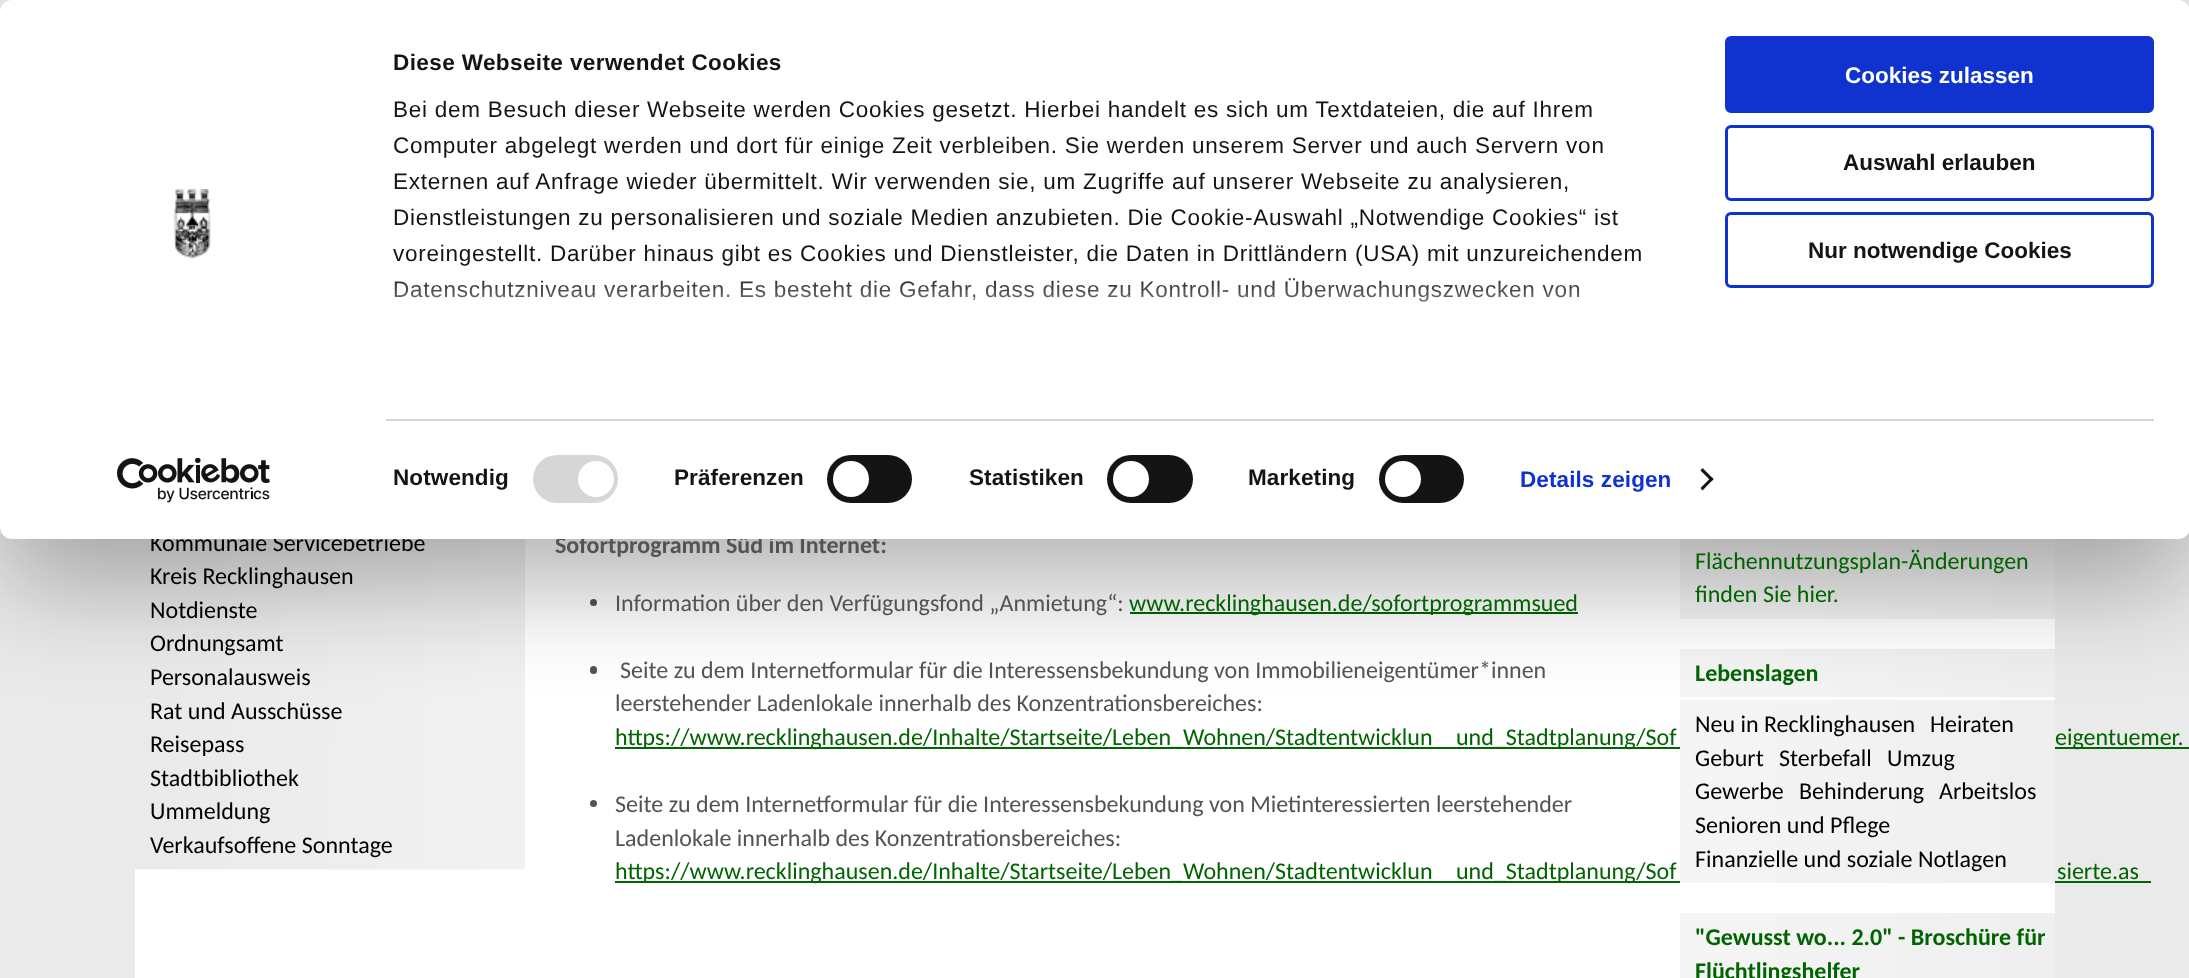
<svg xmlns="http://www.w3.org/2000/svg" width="2189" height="978">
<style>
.a{font:24px Carlito;fill:#000}
.b{font:bold 24px Carlito;fill:#535353}
.c{font:22.5px Liberation Sans;letter-spacing:0.75px;fill:#141414}
.d{font:bold 22.5px Liberation Sans;fill:#141414}
.e{font:bold 22.5px Liberation Sans;fill:#fff}
.f{font:bold 22.5px Liberation Sans;letter-spacing:0.4px;fill:#141414}
.g{font:bold 22.5px Liberation Sans;letter-spacing:0.1px;fill:#1032cf}
.h{font:bold 22.5px Liberation Sans;letter-spacing:0.1px;fill:#141414}
.i{font:24px Carlito;fill:#535353}
.j{font:24px Carlito;fill:#006400}
.k{font:bold 24px Carlito;fill:#006400}
</style>
<defs>
<linearGradient id="g1" gradientUnits="userSpaceOnUse" x1="1023" y1="386" x2="1023" y2="273"><stop offset="0" stop-color="#fff"/><stop offset="0.5" stop-color="#fff" stop-opacity="0.8"/><stop offset="1" stop-color="#fff" stop-opacity="0"/></linearGradient>
</defs>
<rect width="100%" height="100%" fill="#eaeaea"/>
<path fill="#fff" d="M135 539h1920v439H135z"/>
<image href="3.png" x="135" y="539" width="390" height="331"/>
<circle fill="#535353" cx="593.5" cy="602.5" r="3.5"/>
<path fill="#006400" d="M1130 612h448v2H1130z"/>
<rect fill="#535353" x="590" y="666" width="7" height="8" rx="3.5"/>
<image href="4.png" x="1680" y="539" width="375" height="80"/>
<image href="5.png" x="1680" y="649" width="375" height="48"/>
<path fill="#006400" d="M615 747h1574v2H615z"/>
<path fill="#006400" d="M615 881h1536v2H615z"/>
<image href="6.png" x="1680" y="700" width="375" height="183"/>
<rect fill="#0000004d" filter="blur(52.5px)" y="45" width="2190" height="539" rx="12"/>
<circle fill="#535353" cx="593.5" cy="803.5" r="3.5"/>
<image href="7.png" x="1680" y="913" width="375" height="65"/>
<text class="a" x="150" y="551">Kommunale Servicebetriebe</text>
<text class="a" x="150" y="584">Kreis Recklinghausen</text>
<text class="a" x="150" y="618">Notdienste</text>
<text class="a" x="150" y="651">Ordnungsamt</text>
<text class="a" x="150" y="685">Personalausweis</text>
<text class="a" x="150" y="719">Rat und Ausschüsse</text>
<text class="a" x="150" y="752">Reisepass</text>
<text class="a" x="150" y="786">Stadtbibliothek</text>
<text class="a" x="150" y="819">Ummeldung</text>
<text class="a" x="150" y="853">Verkaufsoffene Sonntage</text>
<text class="b" x="555" y="553">Sofortprogramm Süd im Internet:</text>
<rect fill="#fff" width="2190" height="539" rx="12"/>
<text class="c" x="393" y="297">Datenschutzniveau verarbeiten. Es besteht die Gefahr, dass diese zu Kontroll- und Überwachungszwecken von</text>
<path fill="url(#g1)" d="M395 278h1185v24H395z"/>
<rect fill="none" stroke="#1032cf" stroke-width="3" x="1726.5" y="213.5" width="426" height="73" rx="4.5"/>
<text class="d" x="1808" y="258">Nur notwendige Cookies</text>
<rect fill="none" stroke="#1032cf" stroke-width="3" x="1726.5" y="126.5" width="426" height="73" rx="4.5"/>
<text class="d" x="1843" y="170">Auswahl erlauben</text>
<rect fill="#1032cf" stroke="#1032cf" stroke-width="3" x="1726.5" y="37.5" width="426" height="74" rx="4.5"/>
<text class="e" x="1845" y="83">Cookies zulassen</text>
<path fill="#141414" d="M1702.5 468l11 11l-2 2.5l-11-11z"/>
<path fill="#141414" d="M1711.5 477l2 2l-11 11.5l-2-2.5z"/>
<rect fill="#141414" x="1379" y="455" width="85" height="48" rx="24"/>
<circle fill="#fff" cx="1403" cy="479" r="18"/>
<rect fill="#141414" x="1107" y="455" width="86" height="48" rx="24"/>
<circle fill="#fff" cx="1131" cy="479" r="18"/>
<rect fill="#141414" x="827" y="455" width="85" height="48" rx="24"/>
<circle fill="#fff" cx="851" cy="479" r="18"/>
<rect fill="#d6d6d6" x="533" y="455" width="85" height="48" rx="24"/>
<circle fill="#fff" cx="596" cy="479" r="18"/>
<text class="c" x="393" y="261">voreingestellt. Darüber hinaus gibt es Cookies und Dienstleister, die Daten in Drittländern (USA) mit unzureichendem</text>
<text class="c" x="393" y="225">Dienstleistungen zu personalisieren und soziale Medien anzubieten. Die Cookie-Auswahl „Notwendige Cookies“ ist</text>
<text class="c" x="393" y="189">Externen auf Anfrage wieder übermittelt. Wir verwenden sie, um Zugriffe auf unserer Webseite zu analysieren,</text>
<text class="c" x="393" y="153">Computer abgelegt werden und dort für einige Zeit verbleiben. Sie werden unserem Server und auch Servern von</text>
<text class="c" x="393" y="117">Bei dem Besuch dieser Webseite werden Cookies gesetzt. Hierbei handelt es sich um Textdateien, die auf Ihrem</text>
<text class="f" x="393" y="70">Diese Webseite verwendet Cookies</text>
<image href="2.png" x="117" y="458" width="153" height="45"/>
<text class="g" x="1520" y="487">Details zeigen</text>
<text class="h" x="1248" y="485">Marketing</text>
<text class="h" x="969" y="485">Statistiken</text>
<text class="h" x="674" y="485">Präferenzen</text>
<text class="h" x="393" y="485">Notwendig</text>
<path fill="#d6d6d6" d="M386 419h1768v2H386z"/>
<image href="1.png" x="173" y="189" width="38" height="70"/>
<text class="i" x="615" y="611">Information über den Verfügungsfond „Anmietung“:</text>
<text class="j" x="1129" y="611">www.recklinghausen.de/sofortprogrammsued</text>
<text class="i" x="620" y="678">Seite zu dem Internetformular für die Interessensbekundung von Immobilieneigentümer*innen</text>
<text class="i" x="615" y="711">leerstehender Ladenlokale innerhalb des Konzentrationsbereiches:</text>
<text class="j" x="615" y="745">https://www.recklinghausen.de/Inhalte/Startseite/Leben_Wohnen/Stadtentwicklun</text>
<text class="j" x="1456" y="745">und_Stadtplanung/Sof</text>
<text class="j" x="2055" y="745">eigentuemer.</text>
<text class="i" x="615" y="812">Seite zu dem Internetformular für die Interessensbekundung von Mietinteressierten leerstehender</text>
<text class="i" x="615" y="846">Ladenlokale innerhalb des Konzentrationsbereiches:</text>
<text class="j" x="615" y="879">https://www.recklinghausen.de/Inhalte/Startseite/Leben_Wohnen/Stadtentwicklun</text>
<text class="j" x="1456" y="879">und_Stadtplanung/Sof</text>
<text class="j" x="2057" y="879">sierte.as</text>
<text class="j" x="1695" y="569">Flächennutzungsplan-Änderungen</text>
<text class="j" x="1695" y="602">finden Sie hier.</text>
<text class="k" x="1695" y="681">Lebenslagen</text>
<text class="a" x="1695" y="732">Neu in Recklinghausen</text>
<text class="a" x="1930" y="732">Heiraten</text>
<text class="a" x="1695" y="766">Geburt</text>
<text class="a" x="1779" y="766">Sterbefall</text>
<text class="a" x="1887" y="766">Umzug</text>
<text class="a" x="1695" y="799">Gewerbe</text>
<text class="a" x="1799" y="799">Behinderung</text>
<text class="a" x="1939" y="799">Arbeitslos</text>
<text class="a" x="1695" y="833">Senioren und Pflege</text>
<text class="a" x="1695" y="867">Finanzielle und soziale Notlagen</text>
<text class="k" x="1695" y="945">"Gewusst wo... 2.0" - Broschüre für</text>
<text class="k" x="1695" y="979">Flüchtlingshelfer</text>
</svg>
